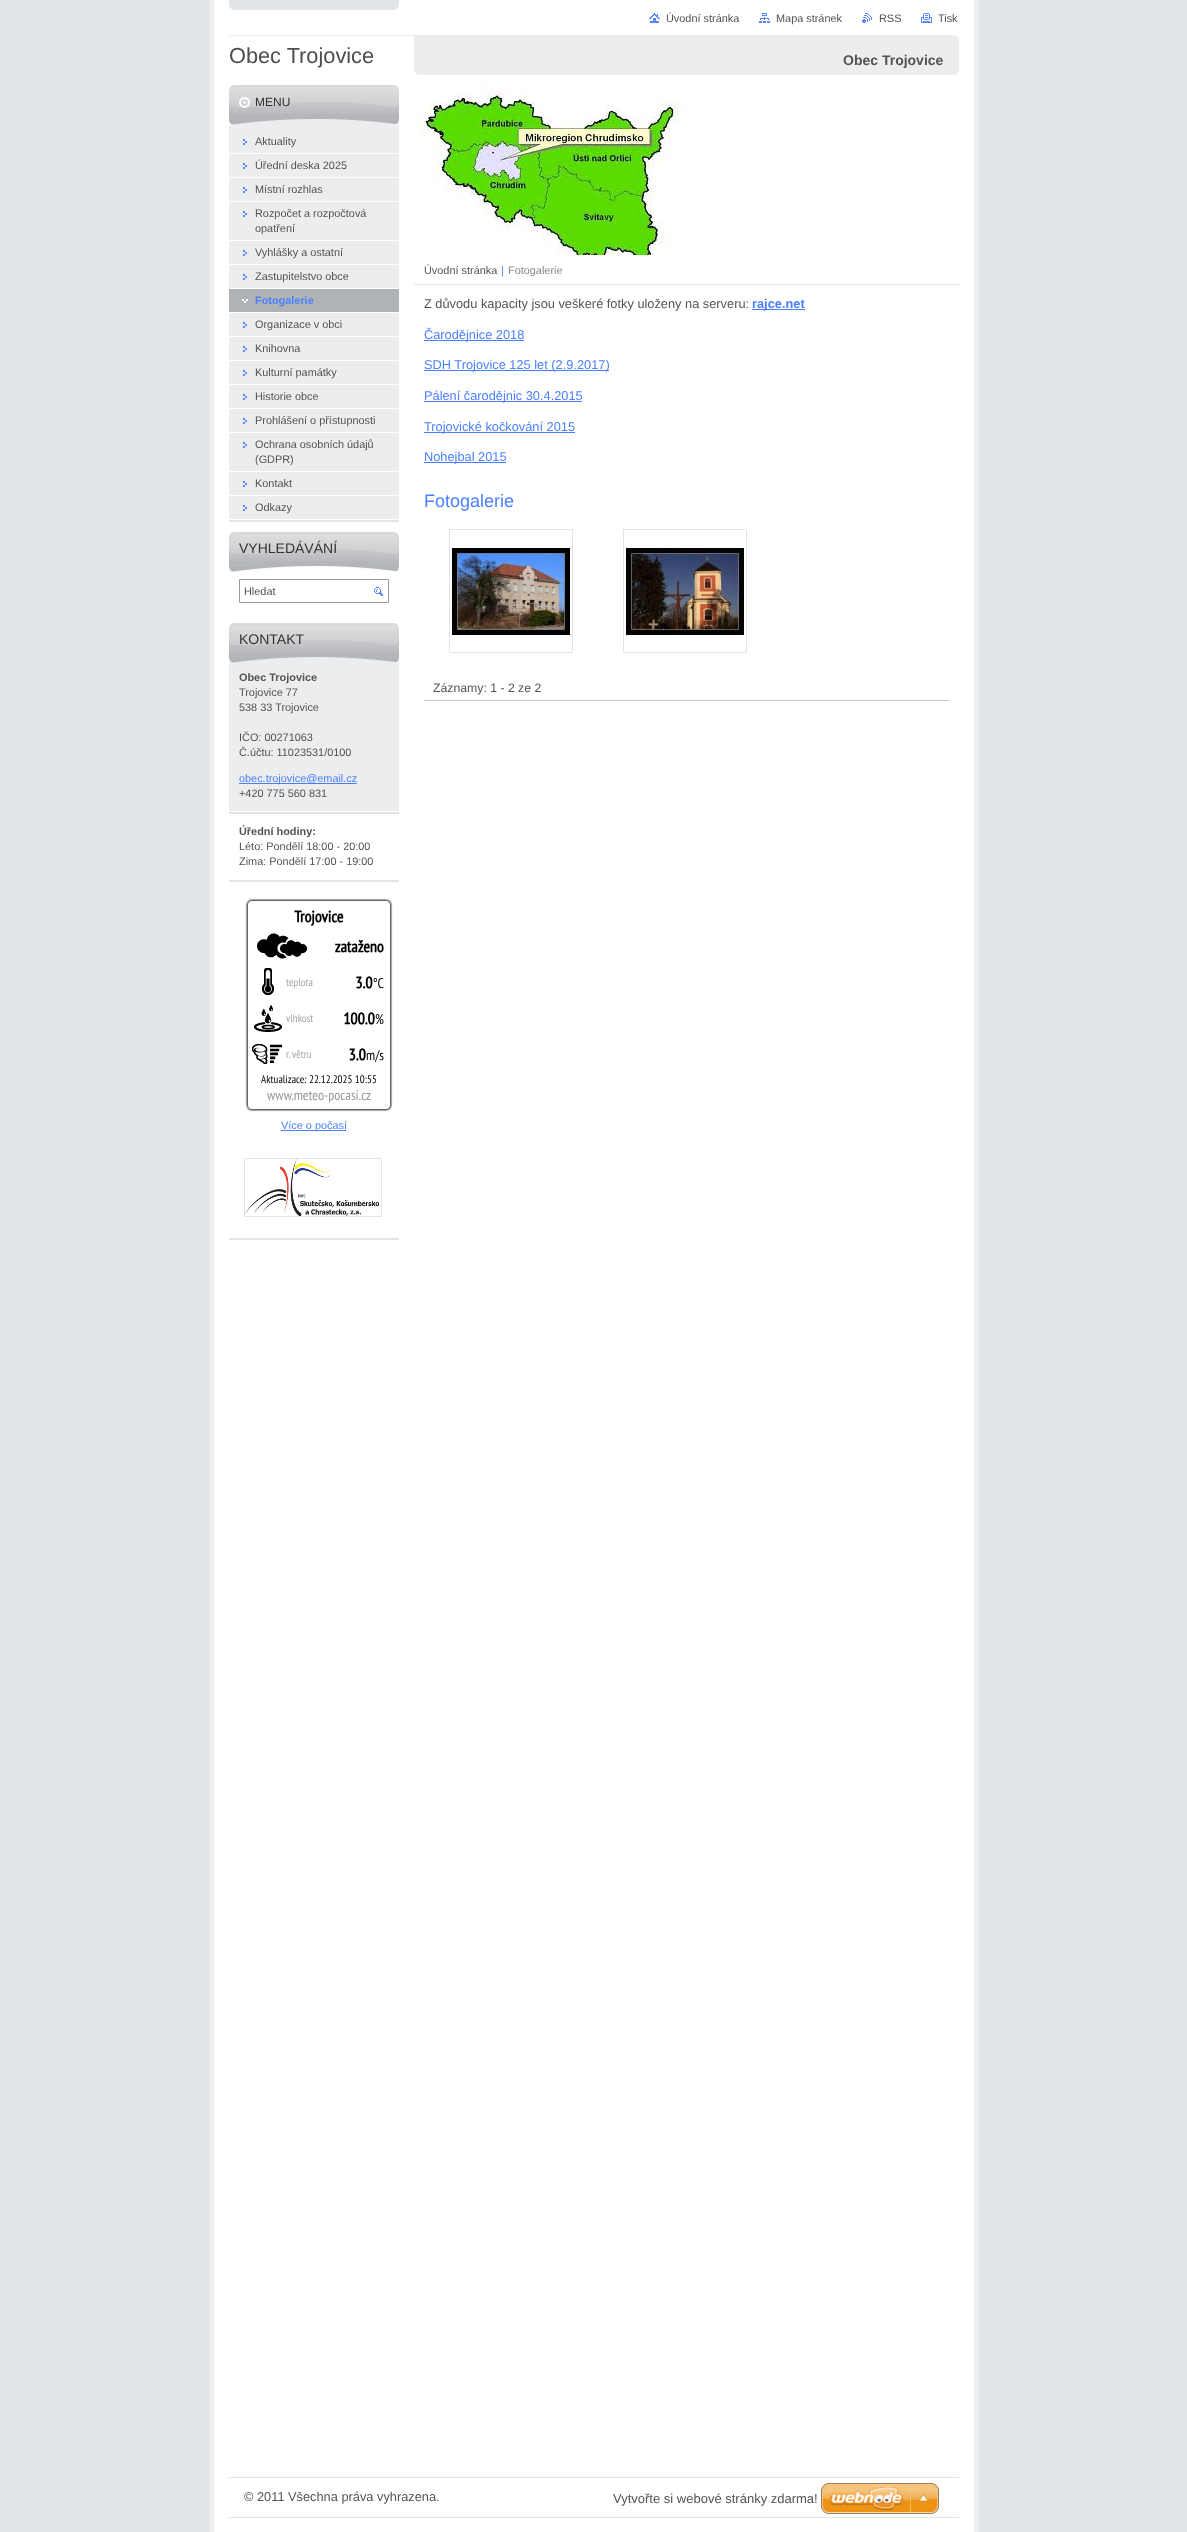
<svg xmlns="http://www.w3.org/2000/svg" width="1187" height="2532">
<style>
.a{font:10.9px Liberation Sans;fill:#535353}
.b{font:21.75px Liberation Sans;fill:#4d4e4f}
.c{font:bold 14px Liberation Sans;fill:#535353}
.d{font:12px Liberation Sans;fill:#333}
.e{font:bold 10.9px Liberation Sans;fill:#4b80ff}
.f{font:14px Liberation Sans;fill:#333}
.g{font:bold 10.9px Liberation Sans;fill:#535353}
.h{font:10.9px Liberation Sans;fill:#4b80ff}
.i{font:10.9px Liberation Sans;fill:#878787}
.j{font:12.8px Liberation Sans;fill:#535353}
.k{font:bold 12.8px Liberation Sans;fill:#4b80ff}
.l{font:12.8px Liberation Sans;fill:#4b80ff}
.m{font:18px Liberation Sans;fill:#4b80ff}
.n{font:12.25px Liberation Sans;fill:#535353}
.o{font:13px Liberation Sans;fill:#535353}
</style>
<rect width="100%" height="100%" fill="#e2e5e8"/>
<path fill="#fff" d="M214 0h760v2532H214z"/>
<image href="1.png" x="229" y="0" width="170" height="10"/>
<path fill="#efefef" d="M974 0h5v2532H974z"/>
<path fill="#efefef" d="M209 0h5v2532H209z"/>
<image href="2.png" x="649" y="13" width="11" height="10"/>
<image href="3.png" x="759" y="13" width="11" height="10"/>
<image href="4.png" x="862" y="13" width="10" height="10"/>
<image href="5.png" x="921" y="13" width="11" height="10"/>
<image href="6.png" x="229" y="35" width="730" height="6"/>
<path fill="#ebedef" d="M414 41h545v30H414z"/>
<image href="7.png" x="414" y="71" width="545" height="4"/>
<path fill="#e2e5e8" d="M229 520h170v2H229z"/>
<path fill="#ebedef" d="M229 125h170v394H229z"/>
<path fill="#b4b6b9" d="M229 114h170v5H229z"/>
<image href="8.png" x="229" y="85" width="170" height="29"/>
<image href="9.png" x="229" y="119" width="170" height="6"/>
<image href="10.png" x="243" y="139" width="4" height="6"/>
<path fill="#fff" d="M229 153h170v1H229z"/>
<image href="10.png" x="243" y="163" width="4" height="6"/>
<path fill="#fff" d="M229 177h170v1H229z"/>
<image href="10.png" x="243" y="187" width="4" height="6"/>
<path fill="#fff" d="M229 201h170v1H229z"/>
<image href="10.png" x="243" y="211" width="4" height="6"/>
<path fill="#fff" d="M229 240h170v1H229z"/>
<image href="10.png" x="243" y="250" width="4" height="6"/>
<path fill="#fff" d="M229 264h170v1H229z"/>
<image href="10.png" x="243" y="274" width="4" height="6"/>
<path fill="#fff" d="M229 288h170v1H229z"/>
<path fill="#b0b3b5" d="M229 289h170v23H229z"/>
<image href="11.png" x="242" y="299" width="6" height="4"/>
<path fill="#fff" d="M229 312h170v1H229z"/>
<image href="10.png" x="243" y="322" width="4" height="6"/>
<path fill="#fff" d="M229 336h170v1H229z"/>
<image href="10.png" x="243" y="346" width="4" height="6"/>
<path fill="#fff" d="M229 360h170v1H229z"/>
<image href="10.png" x="243" y="370" width="4" height="6"/>
<path fill="#fff" d="M229 384h170v1H229z"/>
<image href="10.png" x="243" y="394" width="4" height="6"/>
<path fill="#fff" d="M229 408h170v1H229z"/>
<image href="10.png" x="243" y="418" width="4" height="6"/>
<path fill="#fff" d="M229 432h170v1H229z"/>
<image href="10.png" x="243" y="442" width="4" height="6"/>
<path fill="#fff" d="M229 471h170v1H229z"/>
<image href="10.png" x="243" y="481" width="4" height="6"/>
<path fill="#fff" d="M229 495h170v1H229z"/>
<image href="10.png" x="243" y="505" width="4" height="6"/>
<path fill="#b4b6b9" d="M229 561h170v6H229z"/>
<image href="12.png" x="229" y="532" width="170" height="29"/>
<image href="13.png" x="229" y="566" width="170" height="6"/>
<path fill="none" stroke="#999" d="M239.5 579.5h149v23H239.5z"/>
<image href="14.png" x="374" y="587" width="9" height="9"/>
<path fill="#e2e5e8" d="M229 812h170v2H229z"/>
<path fill="#ebedef" d="M229 663h170v148H229z"/>
<path fill="#b4b6b9" d="M229 652h170v6H229z"/>
<image href="15.png" x="229" y="623" width="170" height="29"/>
<image href="16.png" x="229" y="657" width="170" height="6"/>
<path fill="#4b7fff" d="M239 783h118v1H239z"/>
<path fill="#e2e5e8" d="M229 880h170v2H229z"/>
<image href="17.png" x="245" y="898" width="148" height="214"/>
<path fill="#4b7fff" d="M281 1130h65v1H281z"/>
<path fill="#e2e5e8" d="M229 1238h170v2H229z"/>
<path fill="none" stroke="#e2e5e8" d="M244.5 1158.5h137v58H244.5z"/>
<image href="18.png" x="245" y="1159" width="135" height="57"/>
<image href="19.png" x="414" y="85" width="271" height="170"/>
<path fill="#e2e5e8" d="M414 284h545v1H414z"/>
<path fill="#4b7fff" d="M752 309h53v1H752z"/>
<path fill="#4b7fff" d="M424 340h100v1H424z"/>
<path fill="#4b7fff" d="M424 370h185v1H424z"/>
<path fill="#4b7fff" d="M424 401h158v1H424z"/>
<path fill="#4b7fff" d="M424 432h151v1H424z"/>
<path fill="#4b7fff" d="M424 462h82v1H424z"/>
<path fill="none" stroke="#e2e5e8" d="M449.5 529.5h123v123H449.5z"/>
<image href="20.png" x="452" y="548" width="118" height="87"/>
<path fill="none" stroke="#e2e5e8" d="M623.5 529.5h123v123H623.5z"/>
<image href="21.png" x="626" y="548" width="118" height="87"/>
<path fill="#c8cbcf" d="M424 700h525v1H424z"/>
<path fill="#e2e5e8" d="M229 2477h730v1H229z"/>
<path fill="#e2e5e8" d="M229 2517h730v1H229z"/>
<image href="22.png" x="821" y="2483" width="118" height="31"/>
<text class="a" x="666" y="22">Úvodní stránka</text>
<text class="a" x="776" y="22">Mapa stránek</text>
<text class="a" x="879" y="22">RSS</text>
<text class="a" x="938" y="22">Tisk</text>
<text class="b" x="229" y="63">Obec Trojovice</text>
<text class="c" x="843" y="65">Obec Trojovice</text>
<text class="d" x="255" y="106">MENU</text>
<text class="a" x="255" y="145">Aktuality</text>
<text class="a" x="255" y="169">Úřední deska 2025</text>
<text class="a" x="255" y="193">Místní rozhlas</text>
<text class="a" x="255" y="217">Rozpočet a rozpočtová</text>
<text class="a" x="255" y="232">opatření</text>
<text class="a" x="255" y="256">Vyhlášky a ostatní</text>
<text class="a" x="255" y="280">Zastupitelstvo obce</text>
<text class="e" x="255" y="304">Fotogalerie</text>
<text class="a" x="255" y="328">Organizace v obci</text>
<text class="a" x="255" y="352">Knihovna</text>
<text class="a" x="255" y="376">Kulturní památky</text>
<text class="a" x="255" y="400">Historie obce</text>
<text class="a" x="255" y="424">Prohlášení o přístupnosti</text>
<text class="a" x="255" y="448">Ochrana osobních údajů</text>
<text class="a" x="255" y="463">(GDPR)</text>
<text class="a" x="255" y="487">Kontakt</text>
<text class="a" x="255" y="511">Odkazy</text>
<text class="f" x="239" y="553">VYHLEDÁVÁNÍ</text>
<text class="a" x="244" y="595">Hledat</text>
<text class="f" x="239" y="644">KONTAKT</text>
<text class="g" x="239" y="681">Obec Trojovice</text>
<text class="a" x="239" y="696">Trojovice 77</text>
<text class="a" x="239" y="711">538 33 Trojovice</text>
<text class="a" x="239" y="741">IČO: 00271063</text>
<text class="a" x="239" y="756">Č.účtu: 11023531/0100</text>
<text class="h" x="239" y="782">obec.trojovice@email.cz</text>
<text class="a" x="239" y="797">+420 775 560 831</text>
<text class="g" x="239" y="835">Úřední hodiny:</text>
<text class="a" x="239" y="850">Léto: Pondělí 18:00 - 20:00</text>
<text class="a" x="239" y="865">Zima: Pondělí 17:00 - 19:00</text>
<text class="h" x="281" y="1129">Více o počasí</text>
<text class="a" x="424" y="274">Úvodní stránka</text>
<text class="h" x="501" y="274">|</text>
<text class="i" x="508" y="274">Fotogalerie</text>
<text class="j" x="424" y="308">Z důvodu kapacity jsou veškeré fotky uloženy na serveru:</text>
<text class="k" x="752" y="308">rajce.net</text>
<text class="l" x="424" y="339">Čarodějnice 2018</text>
<text class="l" x="424" y="369">SDH Trojovice 125 let (2.9.2017)</text>
<text class="l" x="424" y="400">Pálení čarodějnic 30.4.2015</text>
<text class="l" x="424" y="431">Trojovické kočkování 2015</text>
<text class="l" x="424" y="461">Nohejbal 2015</text>
<text class="m" x="424" y="507">Fotogalerie</text>
<text class="n" x="433" y="692">Záznamy: 1 - 2 ze 2</text>
<text class="j" x="244" y="2501">© 2011 Všechna práva vyhrazena.</text>
<text class="o" x="613" y="2503">Vytvořte si webové stránky zdarma!</text>
</svg>
